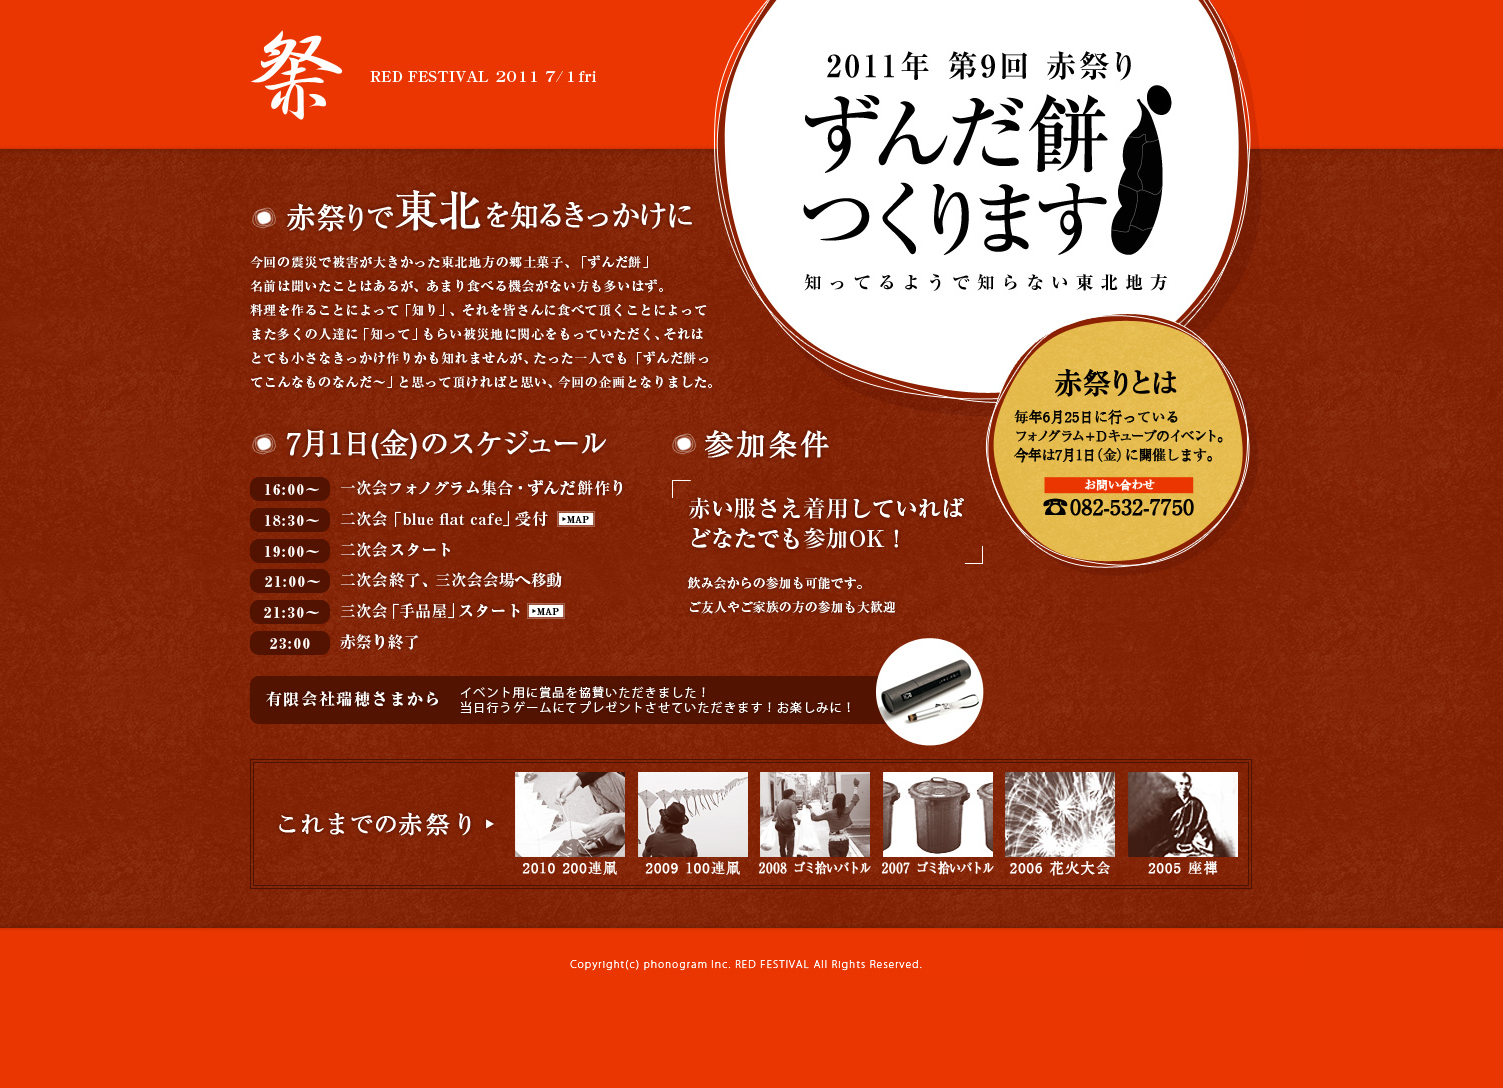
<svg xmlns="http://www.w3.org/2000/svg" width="1503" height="1088">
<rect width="100%" height="100%" fill="#ea3600"/>
<image href="1.png" x="0" y="145" width="1503" height="786"/>
<image href="2.png" x="202" y="0" width="1100" height="976"/>
</svg>
